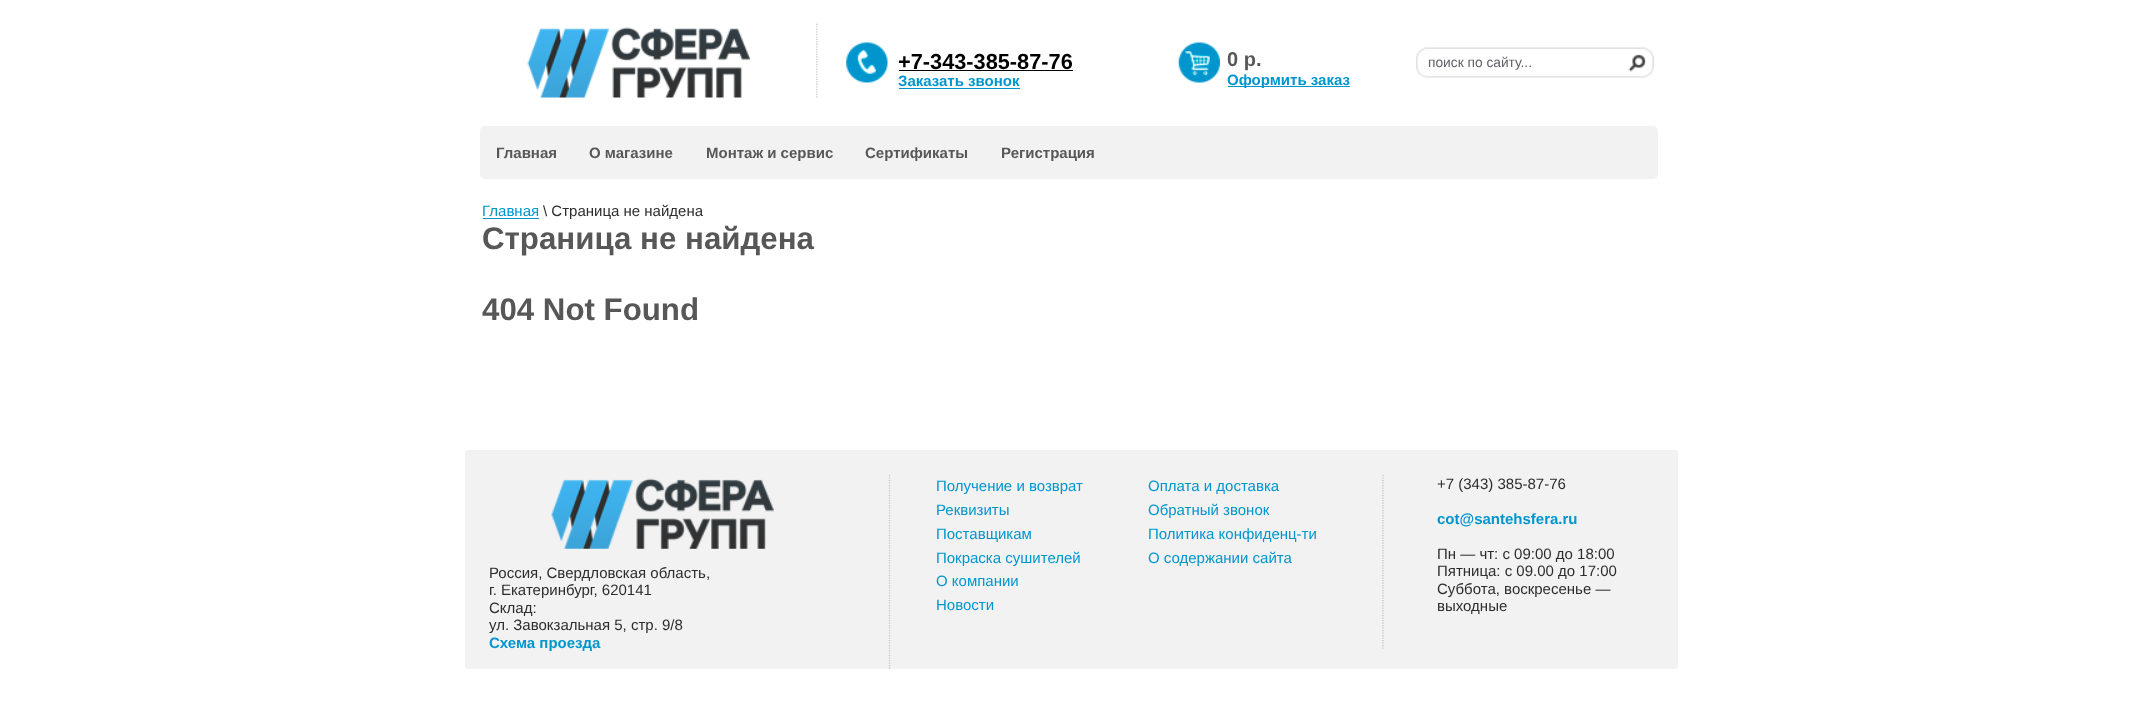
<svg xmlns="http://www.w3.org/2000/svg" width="2136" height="707">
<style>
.a{font:bold 21.75px Liberation Sans;fill:#000}
.b{font:bold 15px Liberation Sans;fill:#0096cd}
.c{font:bold 20px Liberation Sans;fill:#585757}
.d{font:13.75px Liberation Sans;fill:#606266}
.e{font:bold 15px Liberation Sans;fill:#585757}
.f{font:15px Liberation Sans;fill:#0096cd}
.g{font:15px Liberation Sans;fill:#2d2d2d}
.h{font:bold 31.25px Liberation Sans;fill:#585757}
</style>
<rect width="100%" height="100%" fill="#fff"/>
<image href="1.png" x="527" y="27" width="223" height="71"/>
<image href="2.png" x="816" y="23" width="2" height="75"/>
<image href="3.png" x="846" y="42" width="42" height="41"/>
<path fill="#000" d="M899 70h174v1H899z"/>
<path fill="#0096cd" d="M899 88h121v1H899z"/>
<image href="4.png" x="1178" y="42" width="42" height="41"/>
<path fill="#0096cd" d="M1228 86h122v1H1228z"/>
<image href="5.png" x="1416" y="47" width="238" height="31"/>
<rect fill="#f2f2f2" x="480" y="126" width="1178" height="53" rx="5"/>
<path fill="#0395ca" d="M483 218h56v1H483z"/>
<rect fill="#f2f2f2" x="465" y="450" width="1213" height="219" rx="2.5"/>
<path fill="none" stroke="#c2c2c2" stroke-width="1.2" stroke-dasharray="1.25 1.25" d="M889.5 475v194"/>
<image href="6.png" x="551" y="478" width="223" height="71"/>
<path fill="none" stroke="#c2c2c2" stroke-width="1.2" stroke-dasharray="1.25 1.25" d="M1383 475v175"/>
<text class="a" x="898" y="69">+7-343-385-87-76</text>
<text class="b" x="898" y="86">Заказать звонок</text>
<text class="c" x="1227" y="66">0 р.</text>
<text class="b" x="1227" y="85">Оформить заказ</text>
<text class="d" x="1428" y="67">поиск по сайту...</text>
<text class="e" x="496" y="158">Главная</text>
<text class="e" x="589" y="158">О магазине</text>
<text class="e" x="706" y="158">Монтаж и сервис</text>
<text class="e" x="865" y="158">Сертификаты</text>
<text class="e" x="1001" y="158">Регистрация</text>
<text class="f" x="482" y="216">Главная</text>
<text class="g" x="543" y="216">\ Страница не найдена</text>
<text class="h" x="482" y="249">Страница не найдена</text>
<text class="h" x="482" y="320">404 Not Found</text>
<text class="g" x="489" y="578">Россия, Свердловская область,</text>
<text class="g" x="489" y="595">г. Екатеринбург, 620141</text>
<text class="g" x="489" y="613">Склад:</text>
<text class="g" x="489" y="630">ул. Завокзальная 5, стр. 9/8</text>
<text class="b" x="489" y="648">Схема проезда</text>
<text class="f" x="936" y="491">Получение и возврат</text>
<text class="f" x="936" y="515">Реквизиты</text>
<text class="f" x="936" y="539">Поставщикам</text>
<text class="f" x="936" y="563">Покраска сушителей</text>
<text class="f" x="936" y="586">О компании</text>
<text class="f" x="936" y="610">Новости</text>
<text class="f" x="1148" y="491">Оплата и доставка</text>
<text class="f" x="1148" y="515">Обратный звонок</text>
<text class="f" x="1148" y="539">Политика конфиденц-ти</text>
<text class="f" x="1148" y="563">О содержании сайта</text>
<text class="g" x="1437" y="489">+7 (343) 385-87-76</text>
<text class="b" x="1437" y="524">cot@santehsfera.ru</text>
<text class="g" x="1437" y="559">Пн — чт: с 09:00 до 18:00</text>
<text class="g" x="1437" y="576">Пятница: с 09.00 до 17:00</text>
<text class="g" x="1437" y="594">Суббота, воскресенье —</text>
<text class="g" x="1437" y="611">выходные</text>
</svg>
